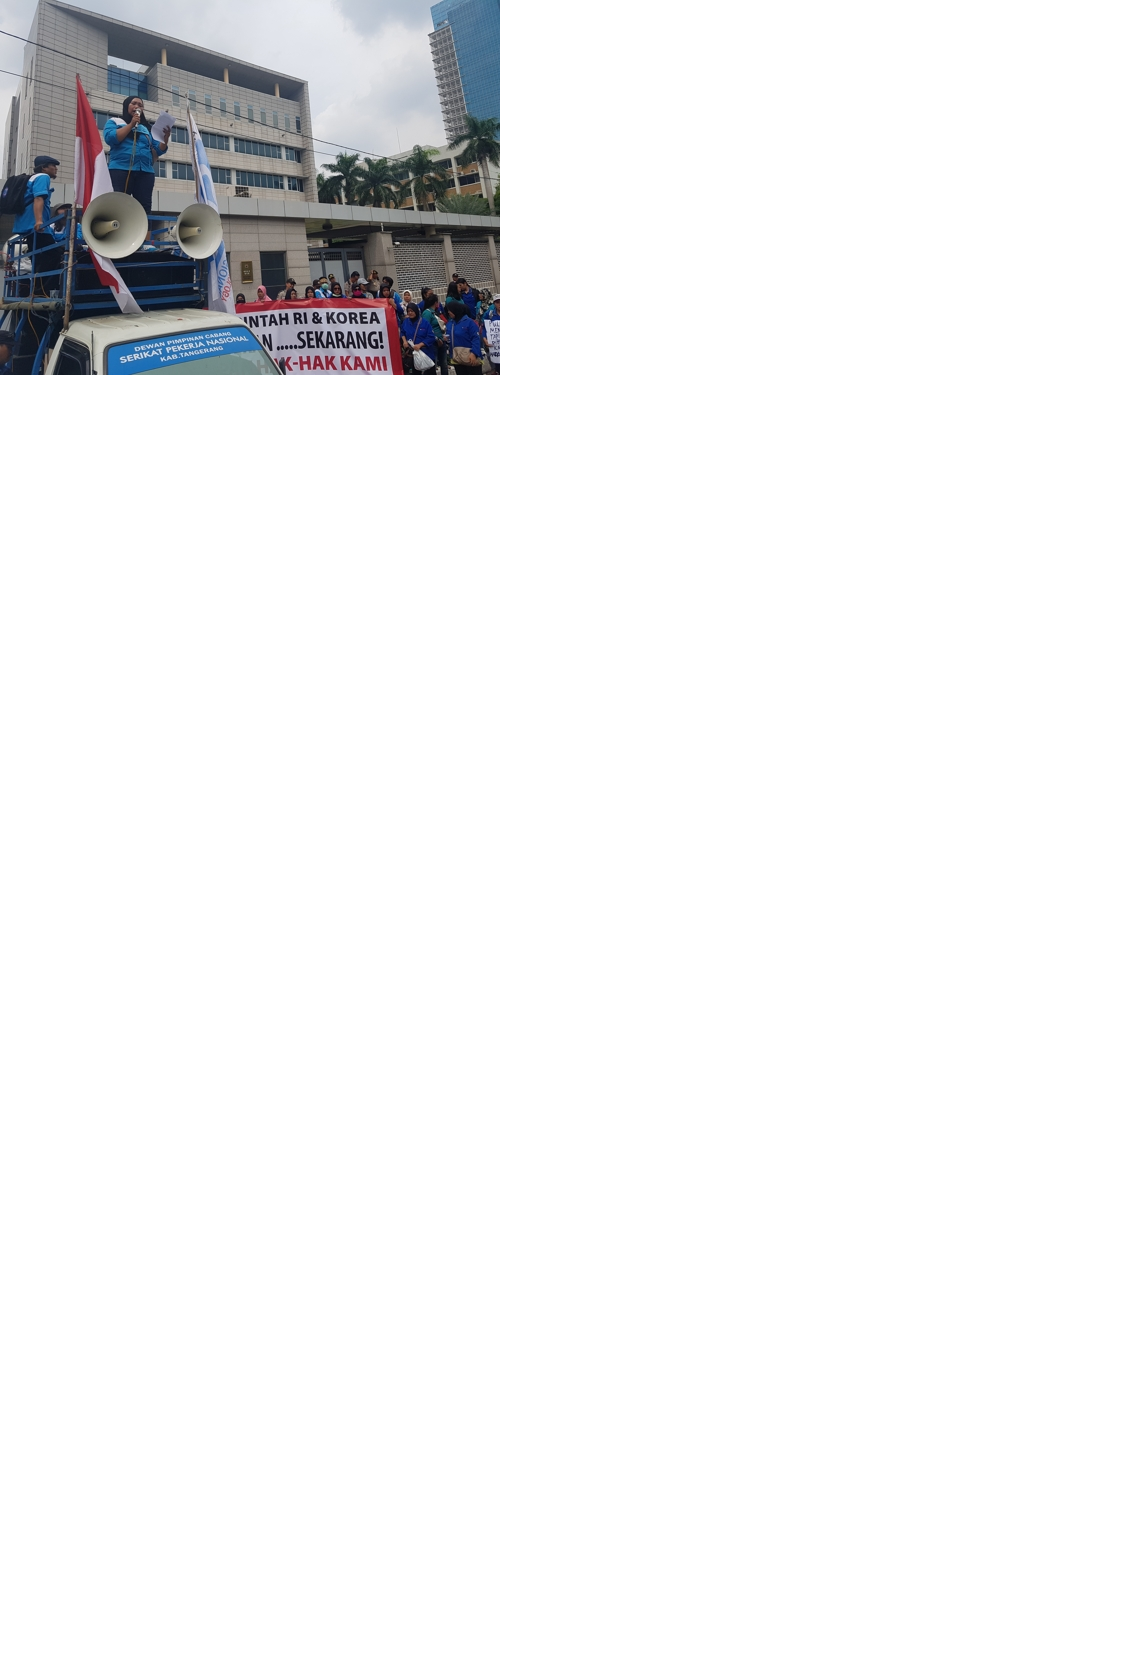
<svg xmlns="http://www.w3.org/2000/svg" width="1127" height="1661">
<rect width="100%" height="100%" fill="#fff"/>
<image href="1.png" x="0" y="0" width="500" height="375"/>
</svg>
